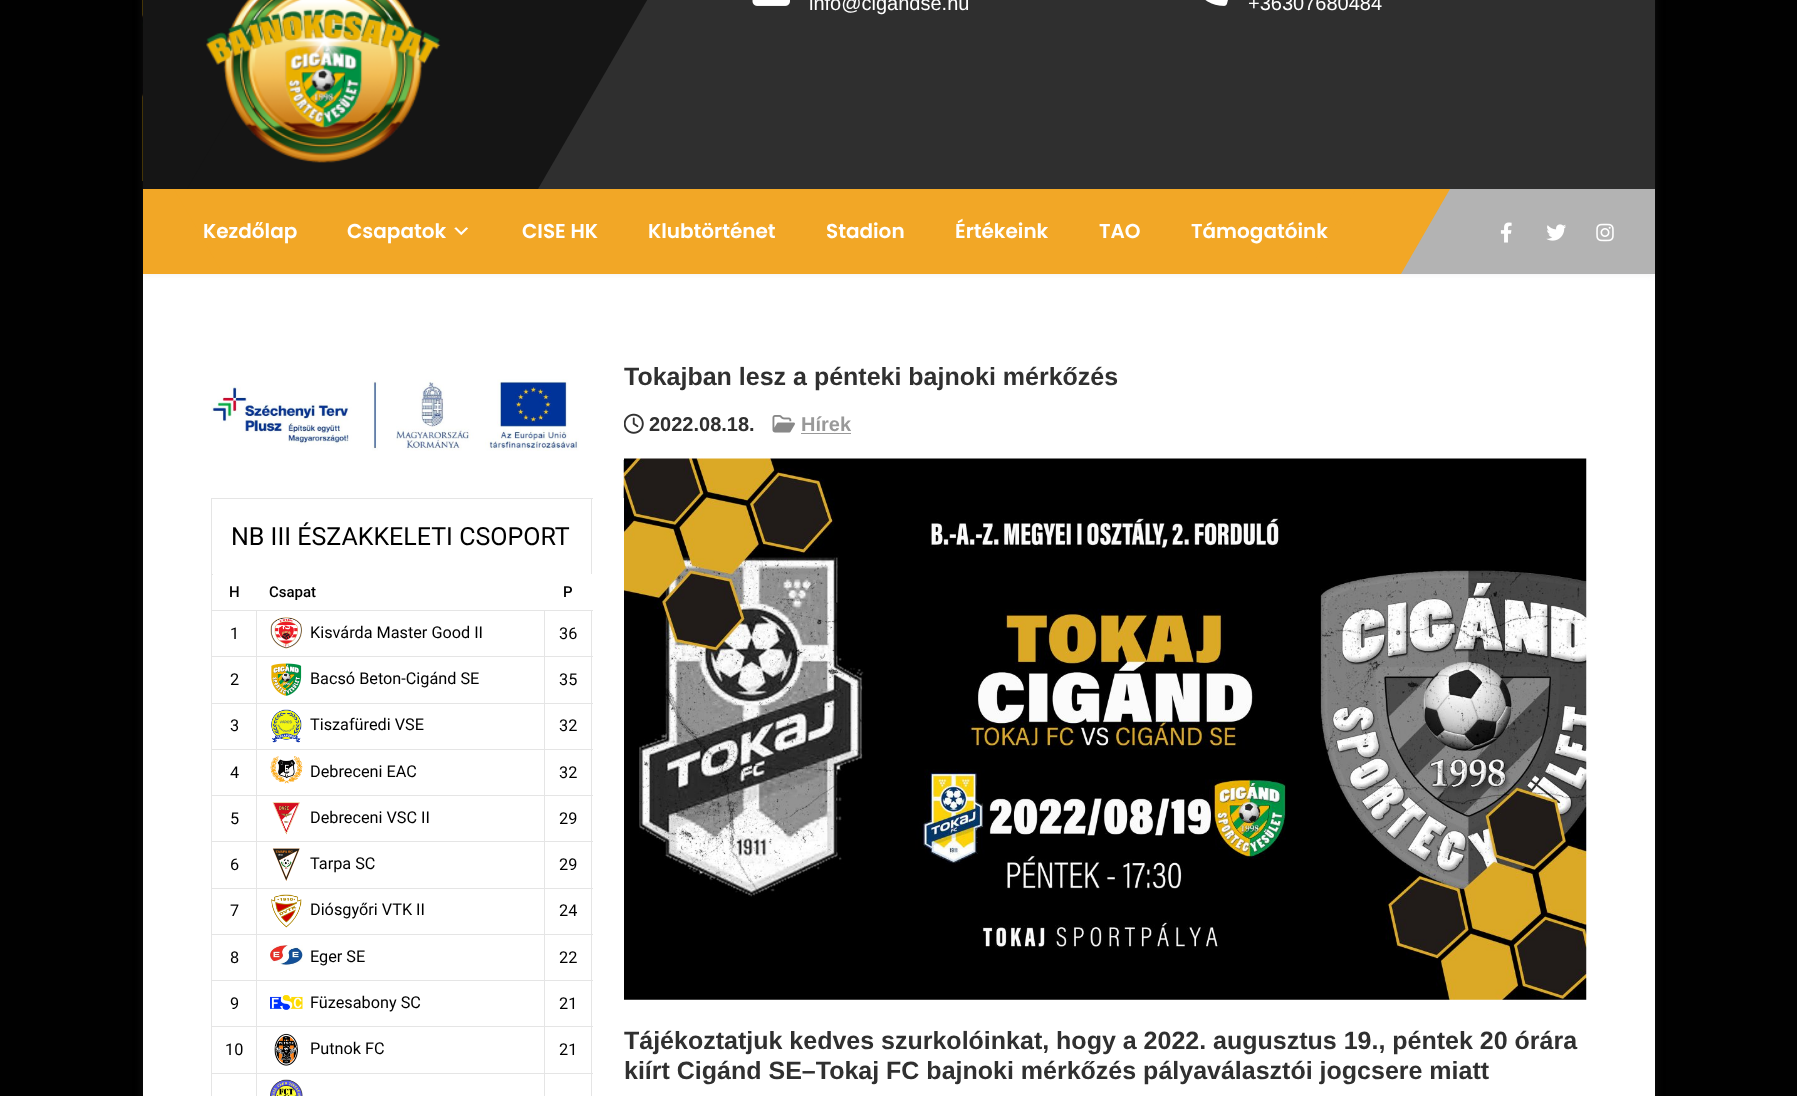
<svg xmlns="http://www.w3.org/2000/svg" width="1797" height="1096">
<style>
.a{font:20px Liberation Sans;fill:#fff}
.b{font:600 20px Poppins;fill:#fff}
.c{font:25px Roboto;fill:#000}
.d{font:500 15px Roboto;fill:#000}
.e{font:16.25px Roboto;fill:#000}
.f{font:bold 25px Liberation Sans;fill:#303030}
.g{font:bold 20px Liberation Sans;fill:#303030}
.h{font:bold 20px Liberation Sans;fill:#999}
</style>
<defs>
<clipPath id="clip1"><path d="M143 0h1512v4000H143z"/></clipPath>
<clipPath id="clip2"><path d="M143 0h1512v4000H143z"/></clipPath>
</defs>
<rect width="100%" height="100%" fill="#010101"/>
<path fill="#111" filter="blur(5px)" d="M143 -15h1512v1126H143z"/>
<path fill="#fff" d="M143 274h1512v822H143z"/>
<g clip-path="url(#clip1)">
<path fill="#f2f2f3" filter="blur(3px)" d="M143 -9h1512v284H143z"/>
</g>
<path fill="#b3b3b3" d="M1401 189h254v85H1401z"/>
<image href="1.png" x="142" y="0" width="1" height="181"/>
<path fill="#2f2f2f" d="M538 0h1117v189H538z"/>
<path fill="#151515" d="M143 0h107v189H143z"/>
<path fill="#151515" d="M336-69h351l-149 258h-351z"/>
<image href="2.png" x="206" y="0" width="235" height="163"/>
<image href="3.png" x="752" y="0" width="38" height="6"/>
<image href="4.png" x="1205" y="0" width="23" height="6"/>
<path fill="#f2a726" d="M174 189h1182v85H174z"/>
<g clip-path="url(#clip2)">
<path fill="#f2a726" d="M80 189h94l49 85h-93z"/>
</g>
<image href="5.png" x="454" y="227" width="15" height="9"/>
<path fill="#f2a726" d="M1356 189h94l-49 85h-94z"/>
<image href="6.png" x="1500" y="222" width="12" height="21"/>
<image href="7.png" x="1546" y="224" width="20" height="17"/>
<image href="8.png" x="1596" y="223" width="18" height="19"/>
<image href="23.png" x="623" y="458" width="964" height="542"/>
<path fill="#fff" d="M623 458h1v2H623z"/>
<image href="9.png" x="211" y="379" width="368" height="72"/>
<path fill="#fff" d="M623 498h1v502H623z"/>
<path fill="#e5e5e5" d="M211 498h382v1H211z"/>
<path fill="#e5e5e5" d="M591 498h1v76H591z"/>
<path fill="#e5e5e5" d="M211 498h1v76H211z"/>
<path fill="#e5e5e5" d="M211 574h2v1H211z"/>
<path fill="#e5e5e5" d="M591 611h1v485H591z"/>
<path fill="#e5e5e5" d="M211 574h1v522H211z"/>
<path fill="#e5e5e5" d="M544 610h49v1H544z"/>
<path fill="#e5e5e5" d="M544 656h49v1H544z"/>
<path fill="#e5e5e5" d="M544 703h49v1H544z"/>
<path fill="#e5e5e5" d="M544 749h49v1H544z"/>
<path fill="#e5e5e5" d="M544 795h49v1H544z"/>
<path fill="#e5e5e5" d="M544 841h49v1H544z"/>
<path fill="#e5e5e5" d="M544 888h49v1H544z"/>
<path fill="#e5e5e5" d="M544 934h49v1H544z"/>
<path fill="#e5e5e5" d="M544 980h49v1H544z"/>
<path fill="#e5e5e5" d="M544 1026h49v1H544z"/>
<path fill="#e5e5e5" d="M544 1073h49v1H544z"/>
<path fill="#e5e5e5" d="M544 1073h1v23H544z"/>
<path fill="#e5e5e5" d="M256 1073h289v1H256z"/>
<path fill="#e5e5e5" d="M544 1026h1v48H544z"/>
<path fill="#e5e5e5" d="M256 1026h289v1H256z"/>
<path fill="#e5e5e5" d="M544 980h1v48H544z"/>
<path fill="#e5e5e5" d="M256 980h289v1H256z"/>
<path fill="#e5e5e5" d="M544 934h1v47H544z"/>
<path fill="#e5e5e5" d="M256 934h289v1H256z"/>
<path fill="#e5e5e5" d="M544 888h1v47H544z"/>
<path fill="#e5e5e5" d="M256 888h289v1H256z"/>
<path fill="#e5e5e5" d="M544 841h1v48H544z"/>
<path fill="#e5e5e5" d="M256 841h289v1H256z"/>
<path fill="#e5e5e5" d="M544 795h1v48H544z"/>
<path fill="#e5e5e5" d="M256 795h289v1H256z"/>
<path fill="#e5e5e5" d="M544 749h1v47H544z"/>
<path fill="#e5e5e5" d="M256 749h289v1H256z"/>
<path fill="#e5e5e5" d="M544 703h1v47H544z"/>
<path fill="#e5e5e5" d="M256 703h289v1H256z"/>
<path fill="#e5e5e5" d="M544 656h1v48H544z"/>
<path fill="#e5e5e5" d="M256 656h289v1H256z"/>
<path fill="#e5e5e5" d="M544 610h1v48H544z"/>
<path fill="#e5e5e5" d="M256 610h289v1H256z"/>
<path fill="#e5e5e5" d="M256 1073h1v23H256z"/>
<path fill="#e5e5e5" d="M211 1073h47v1H211z"/>
<path fill="#e5e5e5" d="M256 1026h1v48H256z"/>
<path fill="#e5e5e5" d="M211 1026h47v1H211z"/>
<path fill="#e5e5e5" d="M256 980h1v48H256z"/>
<path fill="#e5e5e5" d="M211 980h47v1H211z"/>
<path fill="#e5e5e5" d="M256 934h1v47H256z"/>
<path fill="#e5e5e5" d="M211 934h47v1H211z"/>
<path fill="#e5e5e5" d="M256 888h1v47H256z"/>
<path fill="#e5e5e5" d="M211 888h47v1H211z"/>
<path fill="#e5e5e5" d="M256 841h1v48H256z"/>
<path fill="#e5e5e5" d="M211 841h47v1H211z"/>
<path fill="#e5e5e5" d="M256 795h1v48H256z"/>
<path fill="#e5e5e5" d="M211 795h47v1H211z"/>
<path fill="#e5e5e5" d="M256 749h1v47H256z"/>
<path fill="#e5e5e5" d="M211 749h47v1H211z"/>
<path fill="#e5e5e5" d="M256 703h1v47H256z"/>
<path fill="#e5e5e5" d="M211 703h47v1H211z"/>
<path fill="#e5e5e5" d="M256 656h1v48H256z"/>
<path fill="#e5e5e5" d="M211 656h47v1H211z"/>
<path fill="#e5e5e5" d="M256 610h1v48H256z"/>
<path fill="#e5e5e5" d="M211 610h47v1H211z"/>
<image href="10.png" x="270" y="617" width="32" height="32"/>
<image href="11.png" x="271" y="663" width="31" height="33"/>
<image href="12.png" x="271" y="709" width="31" height="34"/>
<image href="13.png" x="270" y="756" width="33" height="28"/>
<image href="14.png" x="272" y="802" width="28" height="33"/>
<image href="15.png" x="272" y="848" width="28" height="33"/>
<image href="16.png" x="271" y="894" width="31" height="34"/>
<image href="17.png" x="270" y="945" width="33" height="21"/>
<image href="18.png" x="270" y="995" width="33" height="15"/>
<image href="19.png" x="274" y="1033" width="24" height="33"/>
<image href="20.png" x="270" y="1079" width="33" height="17"/>
<image href="21.png" x="624" y="413" width="20" height="21"/>
<image href="22.png" x="772" y="415" width="23" height="18"/>
<path fill="#999" d="M801 433h50v1H801z"/>
<text class="a" x="809" y="10">info@cigandse.hu</text>
<text class="a" x="1248" y="10">+36307680484</text>
<text class="b" x="203" y="238">Kezdőlap</text>
<text class="b" x="347" y="238">Csapatok</text>
<text class="b" x="522" y="238">CISE HK</text>
<text class="b" x="648" y="238">Klubtörténet</text>
<text class="b" x="826" y="238">Stadion</text>
<text class="b" x="955" y="238">Értékeink</text>
<text class="b" x="1099" y="238">TAO</text>
<text class="b" x="1191" y="238">Támogatóink</text>
<text class="c" x="231" y="545">NB III ÉSZAKKELETI CSOPORT</text>
<text class="d" x="229" y="597">H</text>
<text class="d" x="269" y="597">Csapat</text>
<text class="d" x="563" y="597">P</text>
<text class="e" x="230" y="639">1</text>
<text class="e" x="310" y="638">Kisvárda Master Good II</text>
<text class="e" x="559" y="639">36</text>
<text class="e" x="230" y="685">2</text>
<text class="e" x="310" y="684">Bacsó Beton-Cigánd SE</text>
<text class="e" x="559" y="685">35</text>
<text class="e" x="230" y="731">3</text>
<text class="e" x="310" y="730">Tiszafüredi VSE</text>
<text class="e" x="559" y="731">32</text>
<text class="e" x="230" y="778">4</text>
<text class="e" x="310" y="777">Debreceni EAC</text>
<text class="e" x="559" y="778">32</text>
<text class="e" x="230" y="824">5</text>
<text class="e" x="310" y="823">Debreceni VSC II</text>
<text class="e" x="559" y="824">29</text>
<text class="e" x="230" y="870">6</text>
<text class="e" x="310" y="869">Tarpa SC</text>
<text class="e" x="559" y="870">29</text>
<text class="e" x="230" y="916">7</text>
<text class="e" x="310" y="915">Diósgyőri VTK II</text>
<text class="e" x="559" y="916">24</text>
<text class="e" x="230" y="963">8</text>
<text class="e" x="310" y="962">Eger SE</text>
<text class="e" x="559" y="963">22</text>
<text class="e" x="230" y="1009">9</text>
<text class="e" x="310" y="1008">Füzesabony SC</text>
<text class="e" x="559" y="1009">21</text>
<text class="e" x="225" y="1055">10</text>
<text class="e" x="310" y="1054">Putnok FC</text>
<text class="e" x="559" y="1055">21</text>
<text class="f" x="624" y="385">Tokajban lesz a pénteki bajnoki mérkőzés</text>
<text class="g" x="649" y="431">2022.08.18.</text>
<text class="h" x="801" y="431">Hírek</text>
<text class="f" x="624" y="1049">Tájékoztatjuk kedves szurkolóinkat, hogy a 2022. augusztus 19., péntek 20 órára</text>
<text class="f" x="624" y="1079">kiírt Cigánd SE–Tokaj FC bajnoki mérkőzés pályaválasztói jogcsere miatt</text>
</svg>
